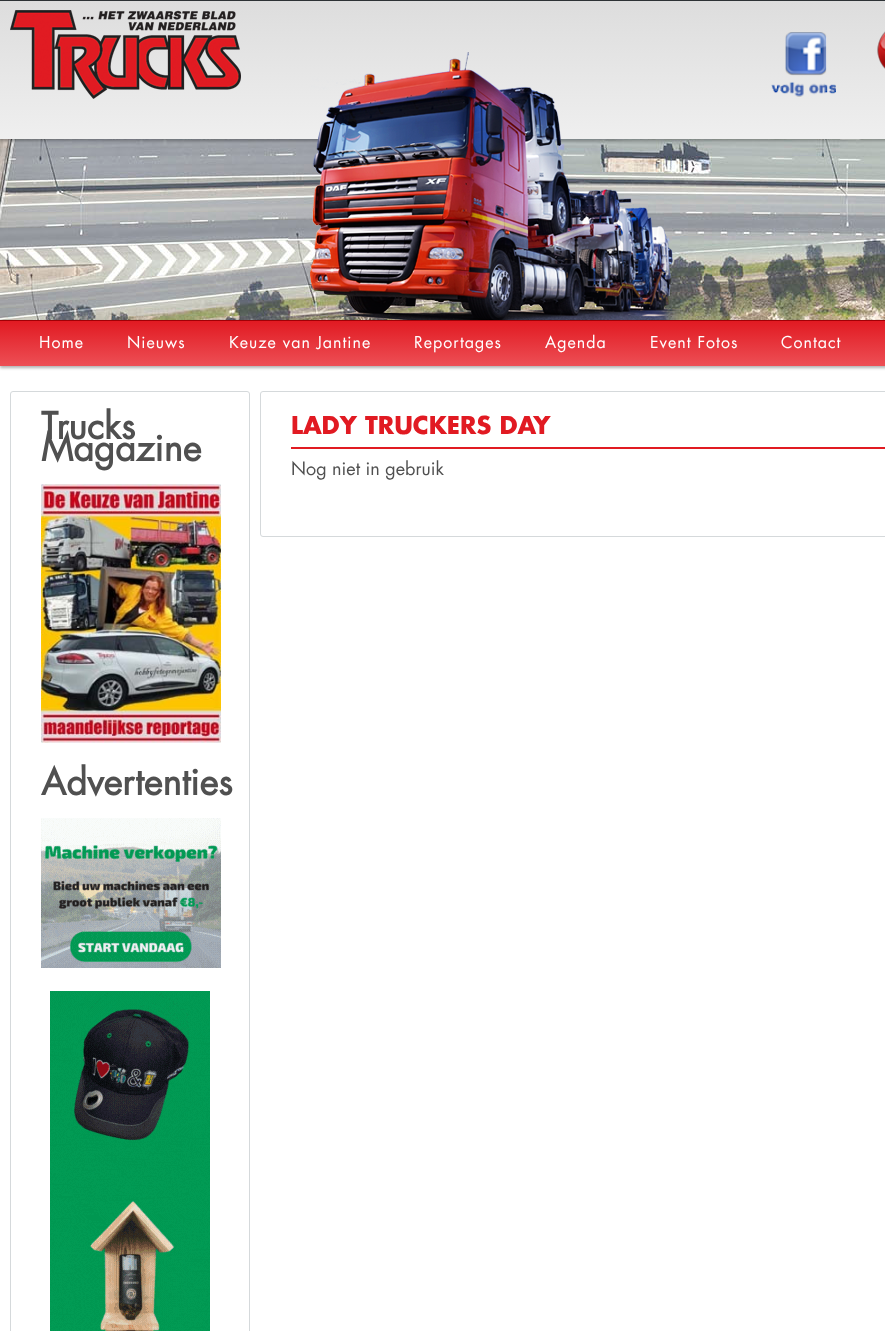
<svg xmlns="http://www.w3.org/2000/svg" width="885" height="1331">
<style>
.a{font:16px Futura;letter-spacing:1px;fill:#fff}
.b{font:bold 36px Futura;fill:#505050}
.c{font:bold 24px 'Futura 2';fill:#e11a22}
.d{font:18px Futura;fill:#505050}
</style>
<defs>
<linearGradient id="g1" gradientUnits="userSpaceOnUse" x1="500" y1="1" x2="500" y2="139"><stop offset="0" stop-color="#ddd"/><stop offset="1" stop-color="#efefef"/></linearGradient>
<linearGradient id="g2" gradientUnits="userSpaceOnUse" x1="500" y1="321" x2="500" y2="366"><stop offset="0" stop-color="#e11a22"/><stop offset="1" stop-color="#ed4f55"/></linearGradient>
</defs>
<rect width="100%" height="100%" fill="#fff"/>
<image href="4.png" x="0" y="139" width="885" height="181"/>
<path fill="#0000004d" filter="blur(1.5px)" d="M0 2h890v139H0z"/>
<path fill="url(#g1)" d="M0 1h885v138H0z"/>
<path fill="#2d3235" d="M0 0h885v1H0z"/>
<image href="1.png" x="10" y="10" width="231" height="89"/>
<image href="2.png" x="771" y="32" width="65" height="65"/>
<image href="3.png" x="877" y="31" width="8" height="38"/>
<path fill="#0000004d" filter="blur(1.5px)" d="M0 322h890v46H0z"/>
<image href="5.png" x="310" y="52" width="373" height="268"/>
<path fill="url(#g2)" d="M0 321h885v45H0z"/>
<path fill="#a00006" d="M0 320h885v1H0z"/>
<rect fill="none" stroke="#d5d9db" x="10.5" y="391.5" width="239" height="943" rx="2.5"/>
<image href="6.png" x="41" y="484" width="180" height="259"/>
<image href="7.png" x="41" y="818" width="180" height="150"/>
<image href="8.png" x="50" y="991" width="160" height="340"/>
<rect fill="none" stroke="#d5d9db" x="260.5" y="391.5" width="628" height="145" rx="2.5"/>
<path fill="#e11b22" d="M291 447h594v2H291z"/>
<text class="a" x="39" y="348">Home</text>
<text class="a" x="127" y="348">Nieuws</text>
<text class="a" x="229" y="348">Keuze van Jantine</text>
<text class="a" x="414" y="348">Reportages</text>
<text class="a" x="545" y="348">Agenda</text>
<text class="a" x="650" y="348">Event Fotos</text>
<text class="a" x="781" y="348">Contact</text>
<text class="b" x="41" y="439">Trucks</text>
<text class="b" x="41" y="461">Magazine</text>
<text class="b" x="41" y="795">Advertenties</text>
<text class="c" x="291" y="434">LADY TRUCKERS DAY</text>
<text class="d" x="291" y="475">Nog niet in gebruik</text>
</svg>
